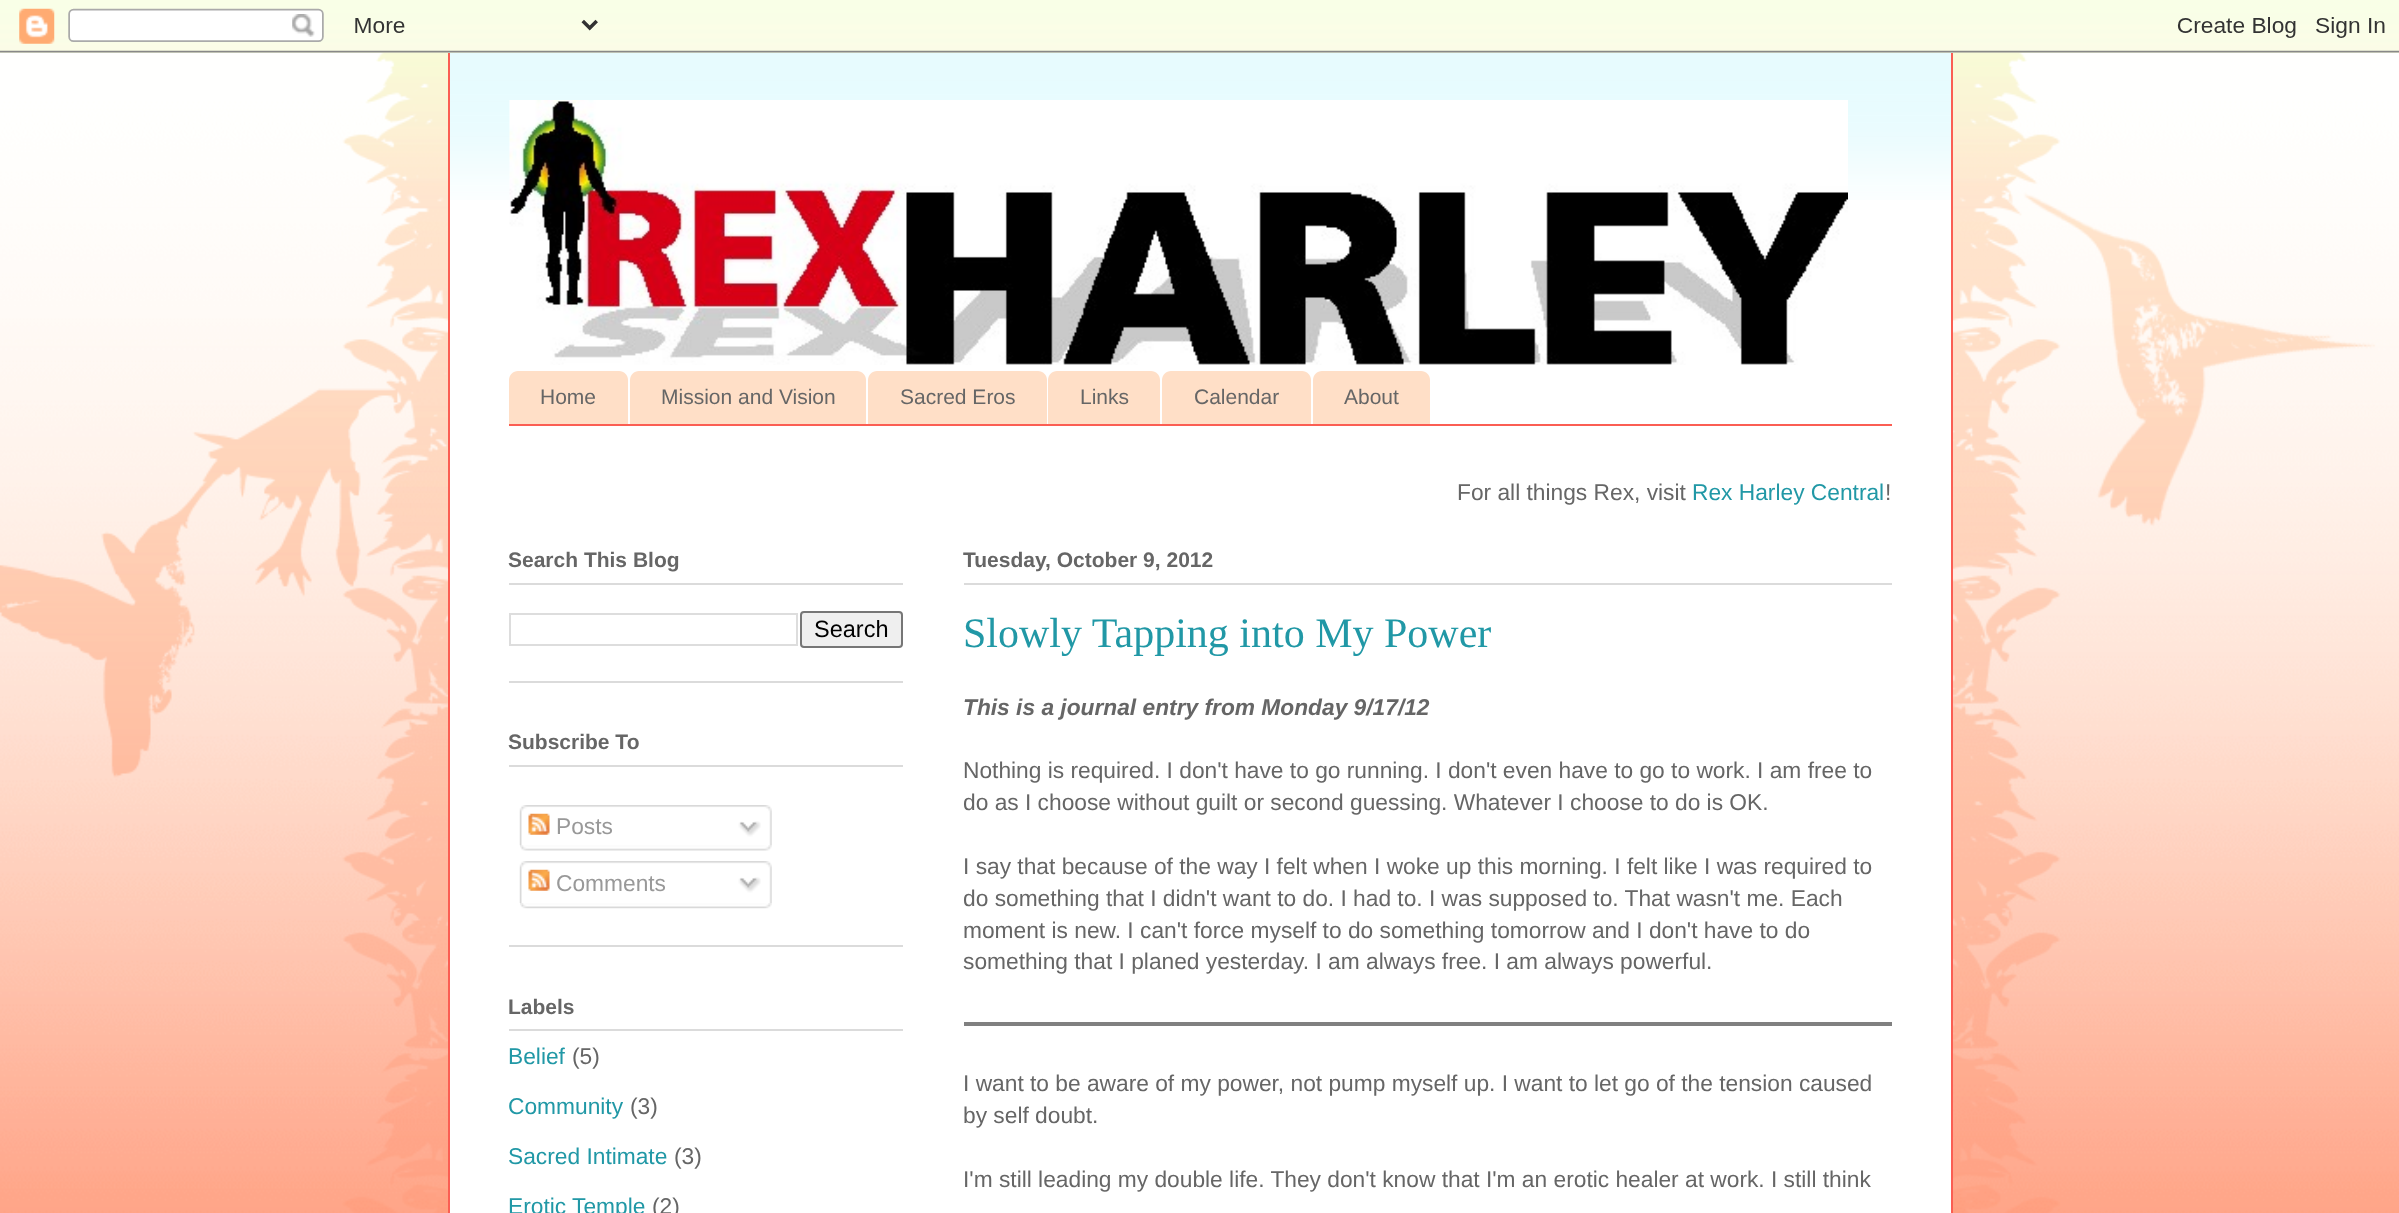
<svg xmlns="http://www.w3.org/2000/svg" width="2399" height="1213">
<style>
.a{font:21px Liberation Sans;fill:#666}
.b{font:22.75px Liberation Sans;fill:#666}
.c{font:22.75px Liberation Sans;fill:#2198a6}
.d{font:bold 21px Liberation Sans;fill:#666}
.e{font:23.5px Liberation Sans;fill:#000}
.f{font:22.75px Liberation Sans;fill:#999}
.g{font:42px Liberation Serif;fill:#2198a6}
.h{font:italic bold 22.75px Liberation Sans;fill:#666}
</style>
<rect width="100%" height="100%" fill="#fff"/>
<image href="1.png" x="0" y="0" width="2399" height="1213"/>
<image href="3.png" x="0" y="52" width="1953" height="1161"/>
<path fill="#fff" d="M450 53h1501v1160H450z"/>
<image href="4.png" x="448" y="52" width="1505" height="148"/>
<image href="5.png" x="1953" y="52" width="446" height="1161"/>
<image href="2.png" x="0" y="0" width="2399" height="53"/>
<path fill="#fb5e53" d="M1951 53h2v1160H1951z"/>
<path fill="#fb5e53" d="M448 53h2v1160H448z"/>
<image href="6.png" x="509" y="100" width="1339" height="265"/>
<path fill="#fb5e53" d="M509 424h1383v2H509z"/>
<path fill="#ffdfc7" d="M518 371h101c5 0 9 4 9 9v44h-119v-44c0-5 4-9 9-9z"/>
<path fill="#ffdfc7" d="M639 371h218c5 0 9 4 9 9v44h-236v-44c0-5 4-9 9-9z"/>
<path fill="#ffdfc7" d="M877 371h161c5 0 9 4 9 9v44h-179v-44c0-5 4-9 9-9z"/>
<path fill="#ffdfc7" d="M1057 371h94c5 0 9 4 9 9v44h-112v-44c0-5 4-9 9-9z"/>
<path fill="#ffdfc7" d="M1171 371h131c5 0 9 4 9 9v44h-149v-44c0-5 4-9 9-9z"/>
<path fill="#ffdfc7" d="M1322 371h99c5 0 9 4 9 9v44h-117v-44c0-5 4-9 9-9z"/>
<path fill="#dbdbdb" d="M509 681h394v2H509z"/>
<path fill="#dbdbdb" d="M509 583h394v2H509z"/>
<path fill="none" stroke="#ddd" stroke-width="2" d="M510 614h287v31H510z"/>
<rect fill="#efefef" stroke="#767676" stroke-width="2" x="801" y="612" width="101" height="35" rx="3"/>
<path fill="#dbdbdb" d="M509 945h394v2H509z"/>
<path fill="#dbdbdb" d="M509 765h394v2H509z"/>
<image href="7.png" x="519" y="805" width="253" height="41"/>
<image href="8.png" x="528" y="813" width="22" height="22"/>
<image href="9.png" x="738" y="821" width="23" height="16"/>
<image href="10.png" x="520" y="845" width="252" height="6"/>
<image href="11.png" x="519" y="861" width="253" height="42"/>
<image href="8.png" x="528" y="869" width="22" height="22"/>
<image href="9.png" x="738" y="877" width="23" height="16"/>
<image href="12.png" x="520" y="903" width="252" height="6"/>
<path fill="#dbdbdb" d="M509 1029h394v2H509z"/>
<path fill="#dbdbdb" d="M964 583h928v2H964z"/>
<path fill="#808080" d="M964 1022h928v4H964z"/>
<text class="a" x="540" y="404">Home</text>
<text class="a" x="661" y="404">Mission and Vision</text>
<text class="a" x="900" y="404">Sacred Eros</text>
<text class="a" x="1080" y="404">Links</text>
<text class="a" x="1194" y="404">Calendar</text>
<text class="a" x="1344" y="404">About</text>
<text class="b" x="1457" y="500">For all things Rex, visit</text>
<text class="c" x="1692" y="500">Rex Harley Central</text>
<text class="b" x="1885" y="500">!</text>
<text class="d" x="508" y="567">Search This Blog</text>
<text class="e" x="814" y="637">Search</text>
<text class="d" x="508" y="749">Subscribe To</text>
<text class="f" x="556" y="834">Posts</text>
<text class="f" x="556" y="891">Comments</text>
<text class="d" x="508" y="1014">Labels</text>
<text class="c" x="508" y="1064">Belief</text>
<text class="b" x="572" y="1064">(5)</text>
<text class="c" x="508" y="1114">Community</text>
<text class="b" x="630" y="1114">(3)</text>
<text class="c" x="508" y="1164">Sacred Intimate</text>
<text class="b" x="674" y="1164">(3)</text>
<text class="c" x="508" y="1214">Erotic Temple</text>
<text class="b" x="652" y="1214">(2)</text>
<text class="d" x="963" y="567">Tuesday, October 9, 2012</text>
<text class="g" x="963" y="647">Slowly Tapping into My Power</text>
<text class="h" x="963" y="715">This is a journal entry from Monday 9/17/12</text>
<text class="b" x="963" y="778">Nothing is required. I don't have to go running. I don't even have to go to work. I am free to</text>
<text class="b" x="963" y="810">do as I choose without guilt or second guessing. Whatever I choose to do is OK.</text>
<text class="b" x="963" y="874">I say that because of the way I felt when I woke up this morning. I felt like I was required to</text>
<text class="b" x="963" y="906">do something that I didn't want to do. I had to. I was supposed to. That wasn't me. Each</text>
<text class="b" x="963" y="938">moment is new. I can't force myself to do something tomorrow and I don't have to do</text>
<text class="b" x="963" y="969">something that I planed yesterday. I am always free. I am always powerful.</text>
<text class="b" x="963" y="1091">I want to be aware of my power, not pump myself up. I want to let go of the tension caused</text>
<text class="b" x="963" y="1123">by self doubt.</text>
<text class="b" x="963" y="1187">I'm still leading my double life. They don't know that I'm an erotic healer at work. I still think</text>
</svg>
